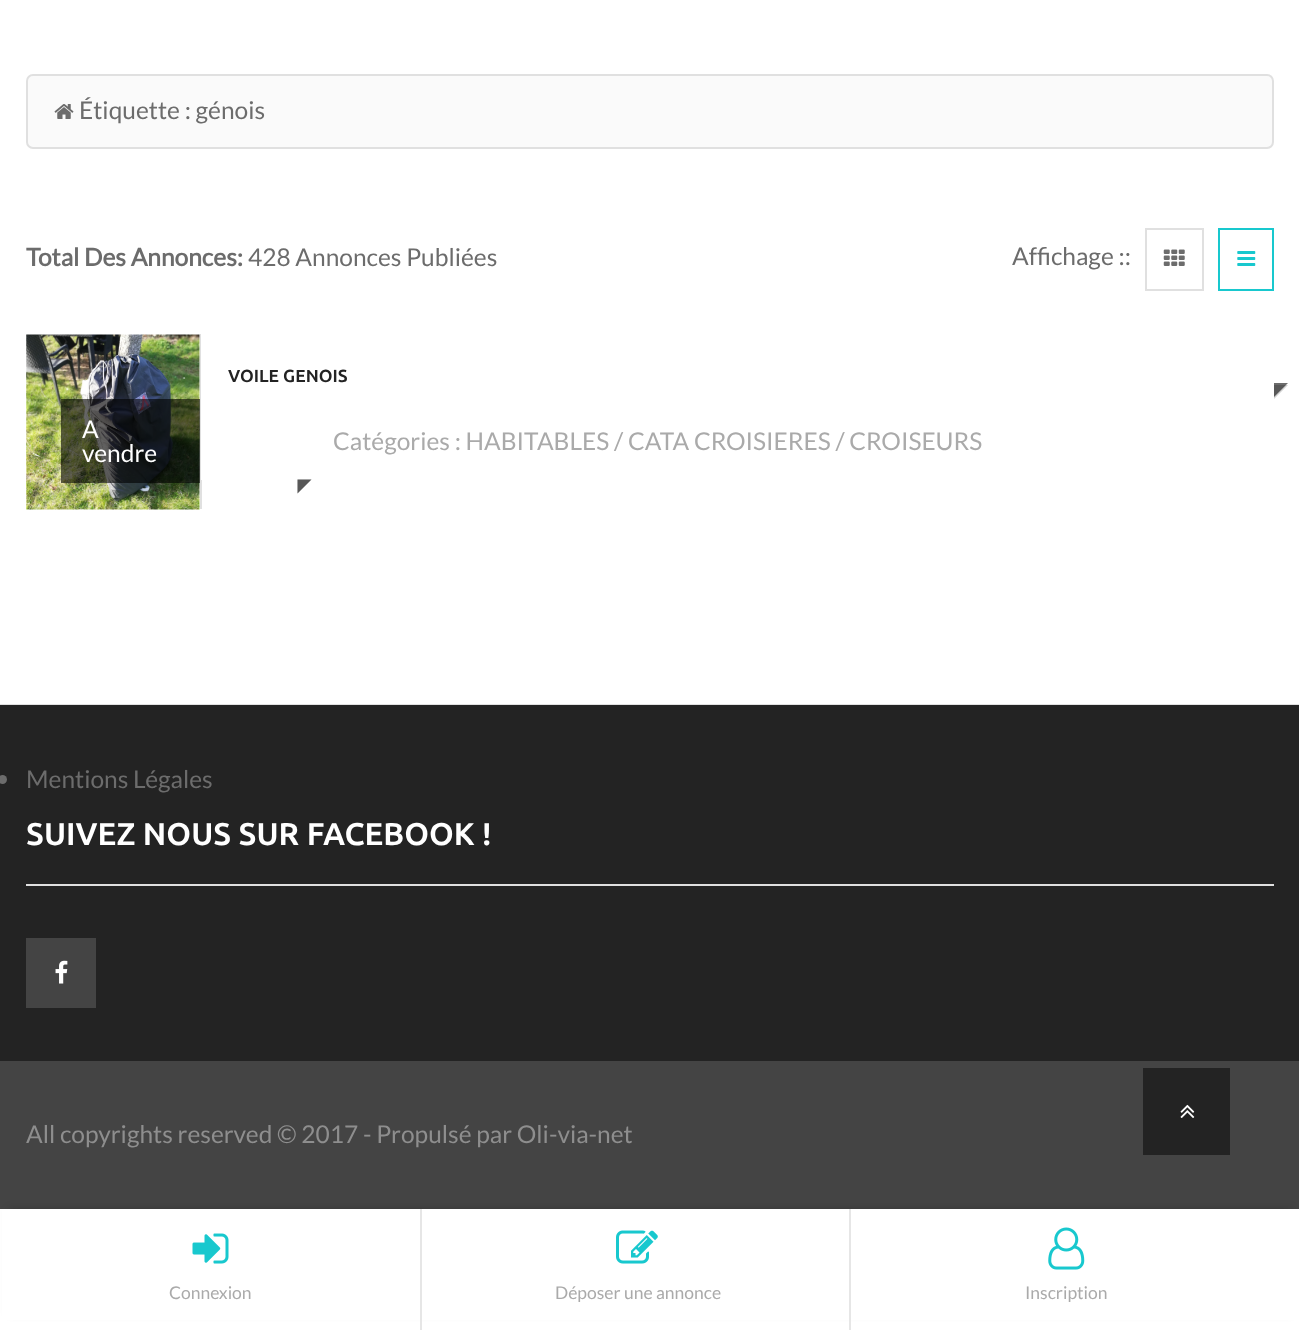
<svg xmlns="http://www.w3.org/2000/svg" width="1299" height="1330">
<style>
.a{font:24.5px Lato;fill:#6c6c6c}
.b{font:bold 24.5px Lato;fill:#6c6c6c}
.c{font:bold 17.5px Ubuntu;fill:#232323}
.d{font:24.5px Lato;fill:#aaa}
.e{font:24.5px Lato;fill:#fff}
.f{font:bold 31.5px Ubuntu;fill:#fff}
.g{font:24.5px Lato;fill:#8e8e8e}
.h{font:17.5px Lato;fill:#aaa}
</style>
<rect width="100%" height="100%" fill="#fff"/>
<path fill="#e0e0e0" d="M0 704h1299v1H0z"/>
<rect fill="#fafafa" stroke="#e0e0e0" stroke-width="2" x="27" y="75" width="1246" height="73" rx="6"/>
<image href="1.png" x="54" y="104" width="20" height="15"/>
<path fill="none" stroke="#e0e0e0" stroke-width="2" d="M1146 229h57v61H1146z"/>
<image href="2.png" x="1163" y="249" width="22" height="17"/>
<path fill="none" stroke="#18c8ce" stroke-width="2" d="M1219 229h54v61H1219z"/>
<image href="3.png" x="1237" y="251" width="19" height="15"/>
<path fill="#e0e0e0" d="M200 334h2v175H200z"/>
<path fill="#fff" d="M201 334h1v146H201z"/>
<path fill="#6c6c6c" d="M297.5 479.5h14l-14 14z"/>
<path fill="#0000002e" d="M297.5 479.5h14l-14 14z"/>
<path fill="#6c6c6c" d="M1274 383h14l-14 14z"/>
<path fill="#0000002e" d="M1274 385h14l-14 14z"/>
<image href="4.png" x="26" y="334" width="174" height="176"/>
<path fill="#00000099" d="M61 399h139v84H61z"/>
<path fill="#232323" d="M0 705h1299v356H0z"/>
<circle fill="#6c6c6c" cx="2.5" cy="779.5" r="4.5"/>
<path fill="#e0e0e0" d="M26 884h1248v2H26z"/>
<path fill="#444" d="M26 938h70v70H26z"/>
<image href="5.png" x="55" y="960" width="13" height="24"/>
<path fill="#444" d="M0 1061h1299v148H0z"/>
<path fill="#232323" d="M1143 1068h87v87H1143z"/>
<image href="6.png" x="1180" y="1104" width="15" height="14"/>
<path fill="#00000033" filter="blur(4.5px)" d="M9 1209h1283v104H9z"/>
<path fill="#fff" d="M2 1209h1297v111H2z"/>
<path fill="#e6e6e6" d="M420 1209h2v121H420z"/>
<image href="7.png" x="192" y="1233" width="37" height="31"/>
<path fill="#e6e6e6" d="M849 1209h2v121H849z"/>
<image href="8.png" x="616" y="1230" width="42" height="34"/>
<image href="9.png" x="1048" y="1227" width="37" height="43"/>
<text class="a" x="79" y="119">Étiquette : génois</text>
<text class="b" x="26" y="266">Total Des Annonces:</text>
<text class="a" x="248" y="266">428 Annonces Publiées</text>
<text class="a" x="1012" y="265">Affichage ::</text>
<text class="c" x="228" y="382">VOILE GENOIS</text>
<text class="d" x="333" y="450">Catégories : HABITABLES / CATA CROISIERES / CROISEURS</text>
<text class="e" x="82" y="438">A</text>
<text class="e" x="82" y="462">vendre</text>
<text class="a" x="26" y="788">Mentions Légales</text>
<text class="f" x="26" y="845">SUIVEZ NOUS SUR FACEBOOK !</text>
<text class="g" x="26" y="1143">All copyrights reserved © 2017 - Propulsé par Oli-via-net</text>
<text class="h" x="169" y="1299">Connexion</text>
<text class="h" x="555" y="1299">Déposer une annonce</text>
<text class="h" x="1025" y="1299">Inscription</text>
</svg>
